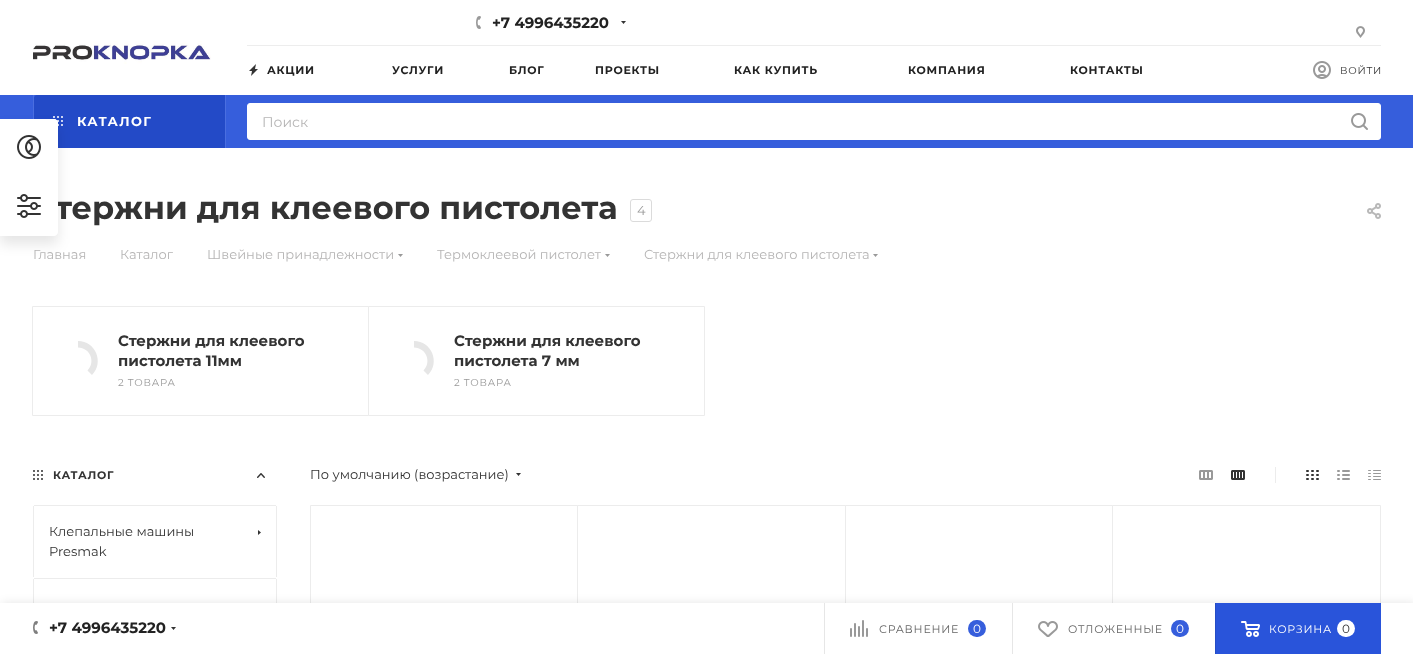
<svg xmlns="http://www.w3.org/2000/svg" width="1413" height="654">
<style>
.a{font:bold 15px Montserrat;fill:#222}
.b{font:bold 11px Montserrat;letter-spacing:0.75px;fill:#222}
.c{font:10px Montserrat;letter-spacing:0.75px;fill:#333}
.d{font:bold 13px Montserrat;letter-spacing:1.25px;fill:#fff}
.e{font:14px Montserrat;fill:#b6b5b5}
.f{font:bold 32px Montserrat;fill:#333}
.g{font:13px Montserrat;fill:#999}
.h{font:13px Montserrat;fill:#b6b5b5}
.i{font:bold 15px Montserrat;fill:#333}
.j{font:10px Montserrat;letter-spacing:0.75px;fill:#999}
.k{font:bold 11px Montserrat;letter-spacing:0.75px;fill:#333}
.l{font:13px Montserrat;fill:#333}
.m{font:11px Montserrat;letter-spacing:0.75px;fill:#666}
.n{font:12px Montserrat;fill:#fff}
.o{font:11px Montserrat;letter-spacing:0.75px;fill:#fff}
.p{font:12px Montserrat;fill:#333}
</style>
<rect width="100%" height="100%" fill="#fff"/>
<image href="1.png" x="33" y="41" width="178" height="23"/>
<image href="2.png" x="476" y="16" width="5" height="13"/>
<path fill="#333" fill-rule="evenodd" d="M621 21h5l-2.5 3z"/>
<image href="3.png" x="1356" y="26" width="9" height="12"/>
<path fill="#ededed" d="M247 45h1134v1H247z"/>
<image href="4.png" x="249" y="64" width="9" height="12"/>
<image href="5.png" x="1313" y="61" width="18" height="18"/>
<path fill="#365edc" d="M0 95h1413v53H0z"/>
<path fill="#4a6ee0" d="M225 95h1v53H225z"/>
<path fill="#4a6ee0" d="M33 95h1v24H33z"/>
<path fill="#234ac7" d="M37 95h188v53h-188c-1.5 0-3-1.5-3-3v-47c0-1.5 1.5-3 3-3z"/>
<image href="6.png" x="53" y="116" width="10" height="10"/>
<rect fill="#fff" stroke="#fff" x="247.5" y="103.5" width="1133" height="36" rx="2.5"/>
<image href="7.png" x="1351" y="113" width="17" height="17"/>
<rect fill="none" stroke="#dbdbdb" x="630.5" y="199.5" width="21" height="22" rx="2.5"/>
<image href="8.png" x="1367" y="203" width="14" height="16"/>
<path fill="#999" fill-rule="evenodd" d="M398 254h5l-2.5 3z"/>
<path fill="#999" fill-rule="evenodd" d="M605 254h5l-2.5 3z"/>
<path fill="#999" fill-rule="evenodd" d="M873 254h5l-2.5 3z"/>
<path fill="none" stroke="#ececec" d="M32.5 306.5h336v109H32.5z"/>
<path fill="#e6e6e6" d="M78 341c17.5 0 26.5 21.5 14 34l-4.5-4.5c8.5-8.5 2.5-23-9.5-23z"/>
<path fill="none" stroke="#ececec" d="M368.5 306.5h336v109H368.5z"/>
<path fill="#e6e6e6" d="M414 341c17.5 0 26.5 21.5 14 34l-4.5-4.5c8.5-8.5 2.5-23-9.5-23z"/>
<image href="9.png" x="33" y="470" width="10" height="10"/>
<image href="10.png" x="257" y="473" width="8" height="5"/>
<path fill="#ececec" d="M34 505h242v1H34z"/>
<path fill="#ececec" d="M276 506h1v71H276z"/>
<path fill="#ececec" d="M33 506h1v71H33z"/>
<path fill="#333" fill-rule="evenodd" d="M258 535v-5l3 2.5z"/>
<path fill="#ececec" d="M34 578h242v1H34z"/>
<path fill="#ececec" d="M276 579h1v24H276z"/>
<path fill="#ececec" d="M33 579h1v24H33z"/>
<path fill="#333" fill-rule="evenodd" d="M516 473h5l-2.5 3z"/>
<image href="11.png" x="1199" y="470" width="14" height="10"/>
<image href="12.png" x="1231" y="470" width="14" height="10"/>
<path fill="#ececec" d="M1275 467h1v16H1275z"/>
<image href="13.png" x="1306" y="470" width="13" height="10"/>
<image href="14.png" x="1337" y="470" width="13" height="10"/>
<image href="15.png" x="1368" y="470" width="13" height="10"/>
<path fill="none" stroke="#ececec" d="M310.5 505.5h267v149H310.5z"/>
<path fill="none" stroke="#ececec" d="M577.5 505.5h268v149H577.5z"/>
<path fill="none" stroke="#ececec" d="M845.5 505.5h267v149H845.5z"/>
<path fill="none" stroke="#ececec" d="M1112.5 505.5h268v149H1112.5z"/>
<rect fill="#0000001a" filter="blur(6.5px)" y="127" width="58" height="117" rx="4"/>
<path fill="#0000001a" filter="blur(5px)" d="M2 603h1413v51H2z"/>
<path fill="#fff" d="M0 603h1413v51H0z"/>
<image href="18.png" x="33" y="621" width="5" height="13"/>
<path fill="#333" fill-rule="evenodd" d="M171 627h5l-2.5 3z"/>
<path fill="#e6e6e6" d="M824 603h1v51H824z"/>
<image href="19.png" x="850" y="620" width="18" height="17"/>
<rect fill="#365edc" x="968" y="620" width="18" height="17" rx="8.5"/>
<path fill="#e6e6e6" d="M1012 603h1v51H1012z"/>
<image href="20.png" x="1038" y="621" width="20" height="16"/>
<rect fill="#365edc" x="1171" y="620" width="18" height="17" rx="8.5"/>
<path fill="#2954da" d="M1216 603h165v51H1216z"/>
<path fill="#254cc4" d="M1215 603h1v51H1215z"/>
<image href="21.png" x="1241" y="621" width="19" height="16"/>
<rect fill="#fff" x="1337" y="620" width="18" height="17" rx="8.5"/>
<text class="a" x="492" y="28">+7 4996435220</text>
<text class="b" x="267" y="74">АКЦИИ</text>
<text class="b" x="392" y="74">УСЛУГИ</text>
<text class="b" x="509" y="74">БЛОГ</text>
<text class="b" x="595" y="74">ПРОЕКТЫ</text>
<text class="b" x="734" y="74">КАК КУПИТЬ</text>
<text class="b" x="908" y="74">КОМПАНИЯ</text>
<text class="b" x="1070" y="74">КОНТАКТЫ</text>
<text class="c" x="1340" y="74">ВОЙТИ</text>
<text class="d" x="77" y="126">КАТАЛОГ</text>
<text class="e" x="262" y="127">Поиск</text>
<text class="f" x="55" y="219">тержни для клеевого пистолета</text>
<text class="g" x="637" y="215">4</text>
<text class="h" x="33" y="259">Главная</text>
<text class="h" x="120" y="259">Каталог</text>
<text class="h" x="207" y="259">Швейные принадлежности</text>
<text class="h" x="437" y="259">Термоклеевой пистолет</text>
<text class="h" x="644" y="259">Стержни для клеевого пистолета</text>
<text class="i" x="118" y="346">Стержни для клеевого</text>
<text class="i" x="118" y="366">пистолета 11мм</text>
<text class="j" x="118" y="386">2 ТОВАРА</text>
<text class="i" x="454" y="346">Стержни для клеевого</text>
<text class="i" x="454" y="366">пистолета 7 мм</text>
<text class="j" x="454" y="386">2 ТОВАРА</text>
<text class="k" x="53" y="479">КАТАЛОГ</text>
<text class="l" x="49" y="536">Клепальные машины</text>
<text class="l" x="49" y="556">Presmak</text>
<text class="l" x="310" y="479">По умолчанию (возрастание)</text>
<path fill="#fff" d="M0 119h54c2 0 4 2 4 4v109c0 2-2 4-4 4h-54z"/>
<path fill="#fff" d="M0 119h54c2 0 4 2 4 4v54h-58z"/>
<image href="16.png" x="17" y="135" width="24" height="24"/>
<image href="17.png" x="17" y="194" width="24" height="24"/>
<text class="a" x="49" y="633">+7 4996435220</text>
<text class="m" x="879" y="633">СРАВНЕНИЕ</text>
<text class="n" x="973" y="633">0</text>
<text class="m" x="1068" y="633">ОТЛОЖЕННЫЕ</text>
<text class="n" x="1176" y="633">0</text>
<text class="o" x="1269" y="633">КОРЗИНА</text>
<text class="p" x="1342" y="633">0</text>
</svg>
